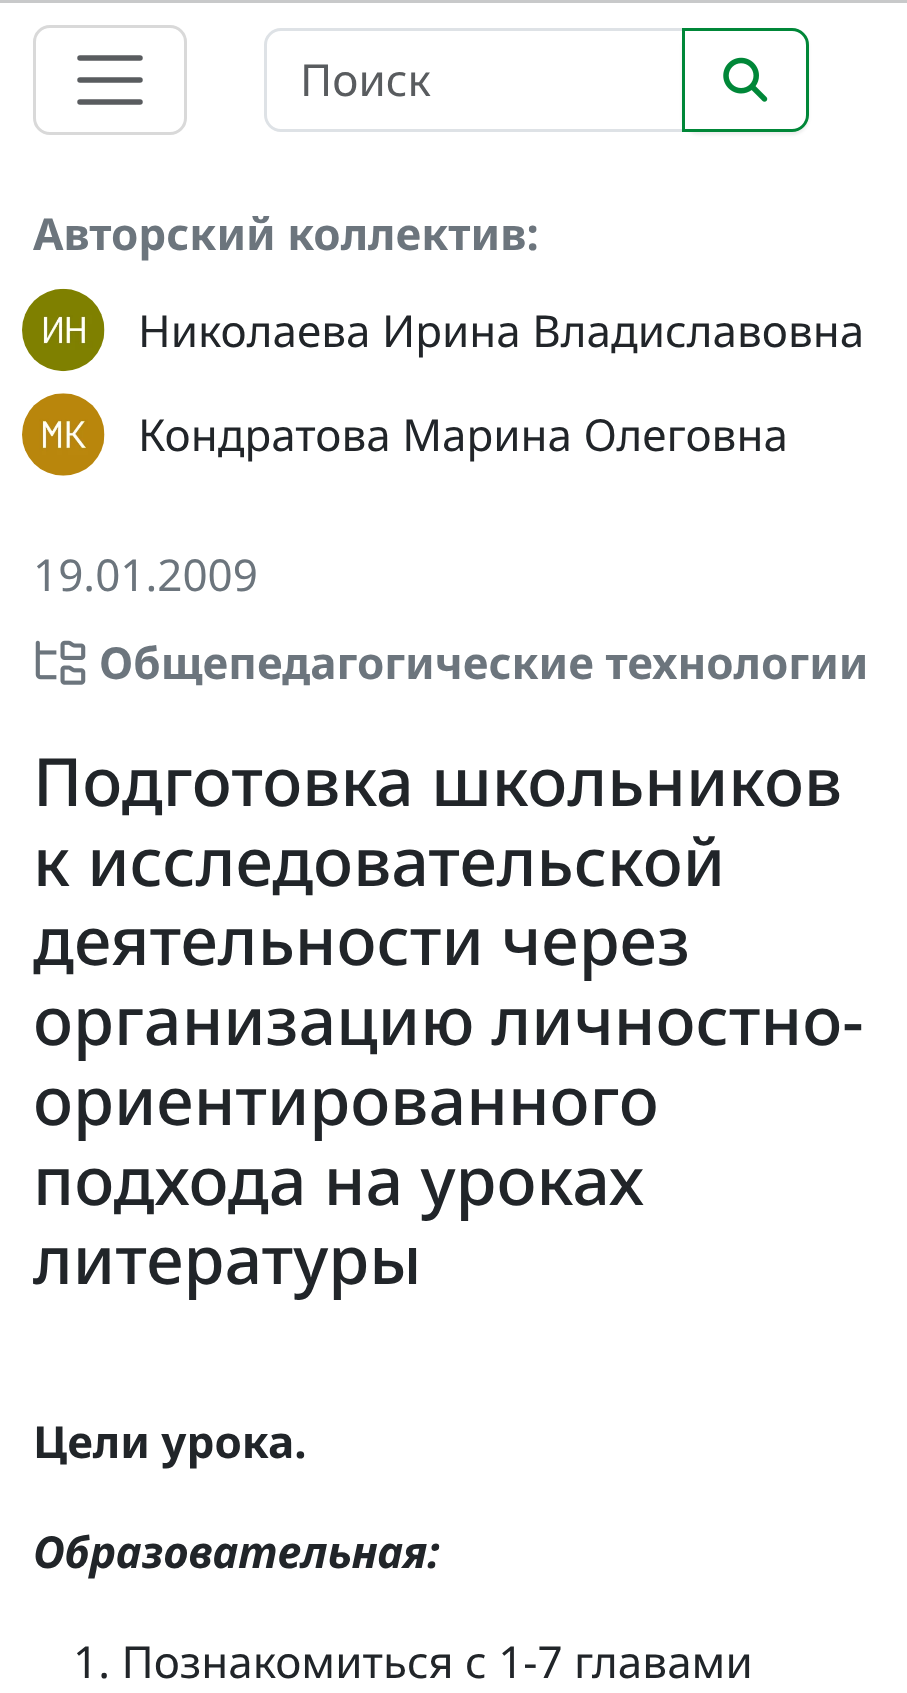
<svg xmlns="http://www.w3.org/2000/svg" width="907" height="1693">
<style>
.a{font:44px Noto Sans;fill:#595c5f}
.b{font:bold 44px Noto Sans;fill:#6c757d}
.c{font:44px Noto Sans;fill:#212529}
.d{font:44px Noto Sans;fill:#6c757d}
.e{font:500 66.5px Noto Sans;fill:#212529}
.f{font:bold 44px Noto Sans;fill:#212529}
.g{font:italic bold 44px Noto Sans;fill:#212529}
</style>
<defs>
<clipPath id="clip1"><path d="M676 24h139v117h-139zm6 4h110c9.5 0 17 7.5 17 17v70c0 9.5-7.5 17-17 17h-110z" clip-rule="evenodd"/></clipPath>
</defs>
<rect width="100%" height="100%" fill="#fff"/>
<path fill="#c8c9ca" d="M0 0h907v3H0z"/>
<rect fill="none" stroke="#d9d9d9" stroke-width="3" x="34.5" y="26.5" width="151" height="107" rx="15.5"/>
<path fill="none" stroke="#595c5f" stroke-width="5.5" stroke-linecap="round" d="M80 58h60m-60 22h60m-60 22h60"/>
<path fill="none" stroke="#dee2e6" stroke-width="3" d="M281 29.5h402.5v101h-402.5c-8.5 0-15.5-7-15.5-15.5v-70c0-8.5 7-15.5 15.5-15.5z"/>
<g clip-path="url(#clip1)">
<rect fill="#00000012" filter="blur(1.5px)" x="682" y="30" width="127" height="105" rx="17"/>
</g>
<path fill="none" stroke="#008738" stroke-width="3" d="M683.5 29.5h108.5c8.5 0 15.5 7 15.5 15.5v70c0 8.5-7 15.5-15.5 15.5h-108.5z"/>
<image href="1.png" x="723" y="57" width="45" height="45"/>
<image href="2.png" x="22" y="288" width="83" height="84"/>
<image href="3.png" x="22" y="393" width="83" height="83"/>
<image href="4.png" x="35" y="640" width="51" height="45"/>
<text class="a" x="300" y="96">Поиск</text>
<text class="b" x="33" y="250">Авторский коллектив:</text>
<text class="c" x="138" y="347">Николаева Ирина Владиславовна</text>
<text class="c" x="138" y="451">Кондратова Марина Олеговна</text>
<text class="d" x="33" y="591">19.01.2009</text>
<text class="b" x="99" y="679">Общепедагогические технологии</text>
<text class="e" x="33" y="806">Подготовка школьников</text>
<text class="e" x="33" y="886">к исследовательской</text>
<text class="e" x="33" y="965">деятельности через</text>
<text class="e" x="33" y="1045">организацию личностно-</text>
<text class="e" x="33" y="1125">ориентированного</text>
<text class="e" x="33" y="1205">подхода на уроках</text>
<text class="e" x="33" y="1284">литературы</text>
<text class="f" x="33" y="1458">Цели урока.</text>
<text class="g" x="33" y="1568">Образовательная:</text>
<text class="c" x="73" y="1678">1. Познакомиться с 1-7 главами</text>
</svg>
